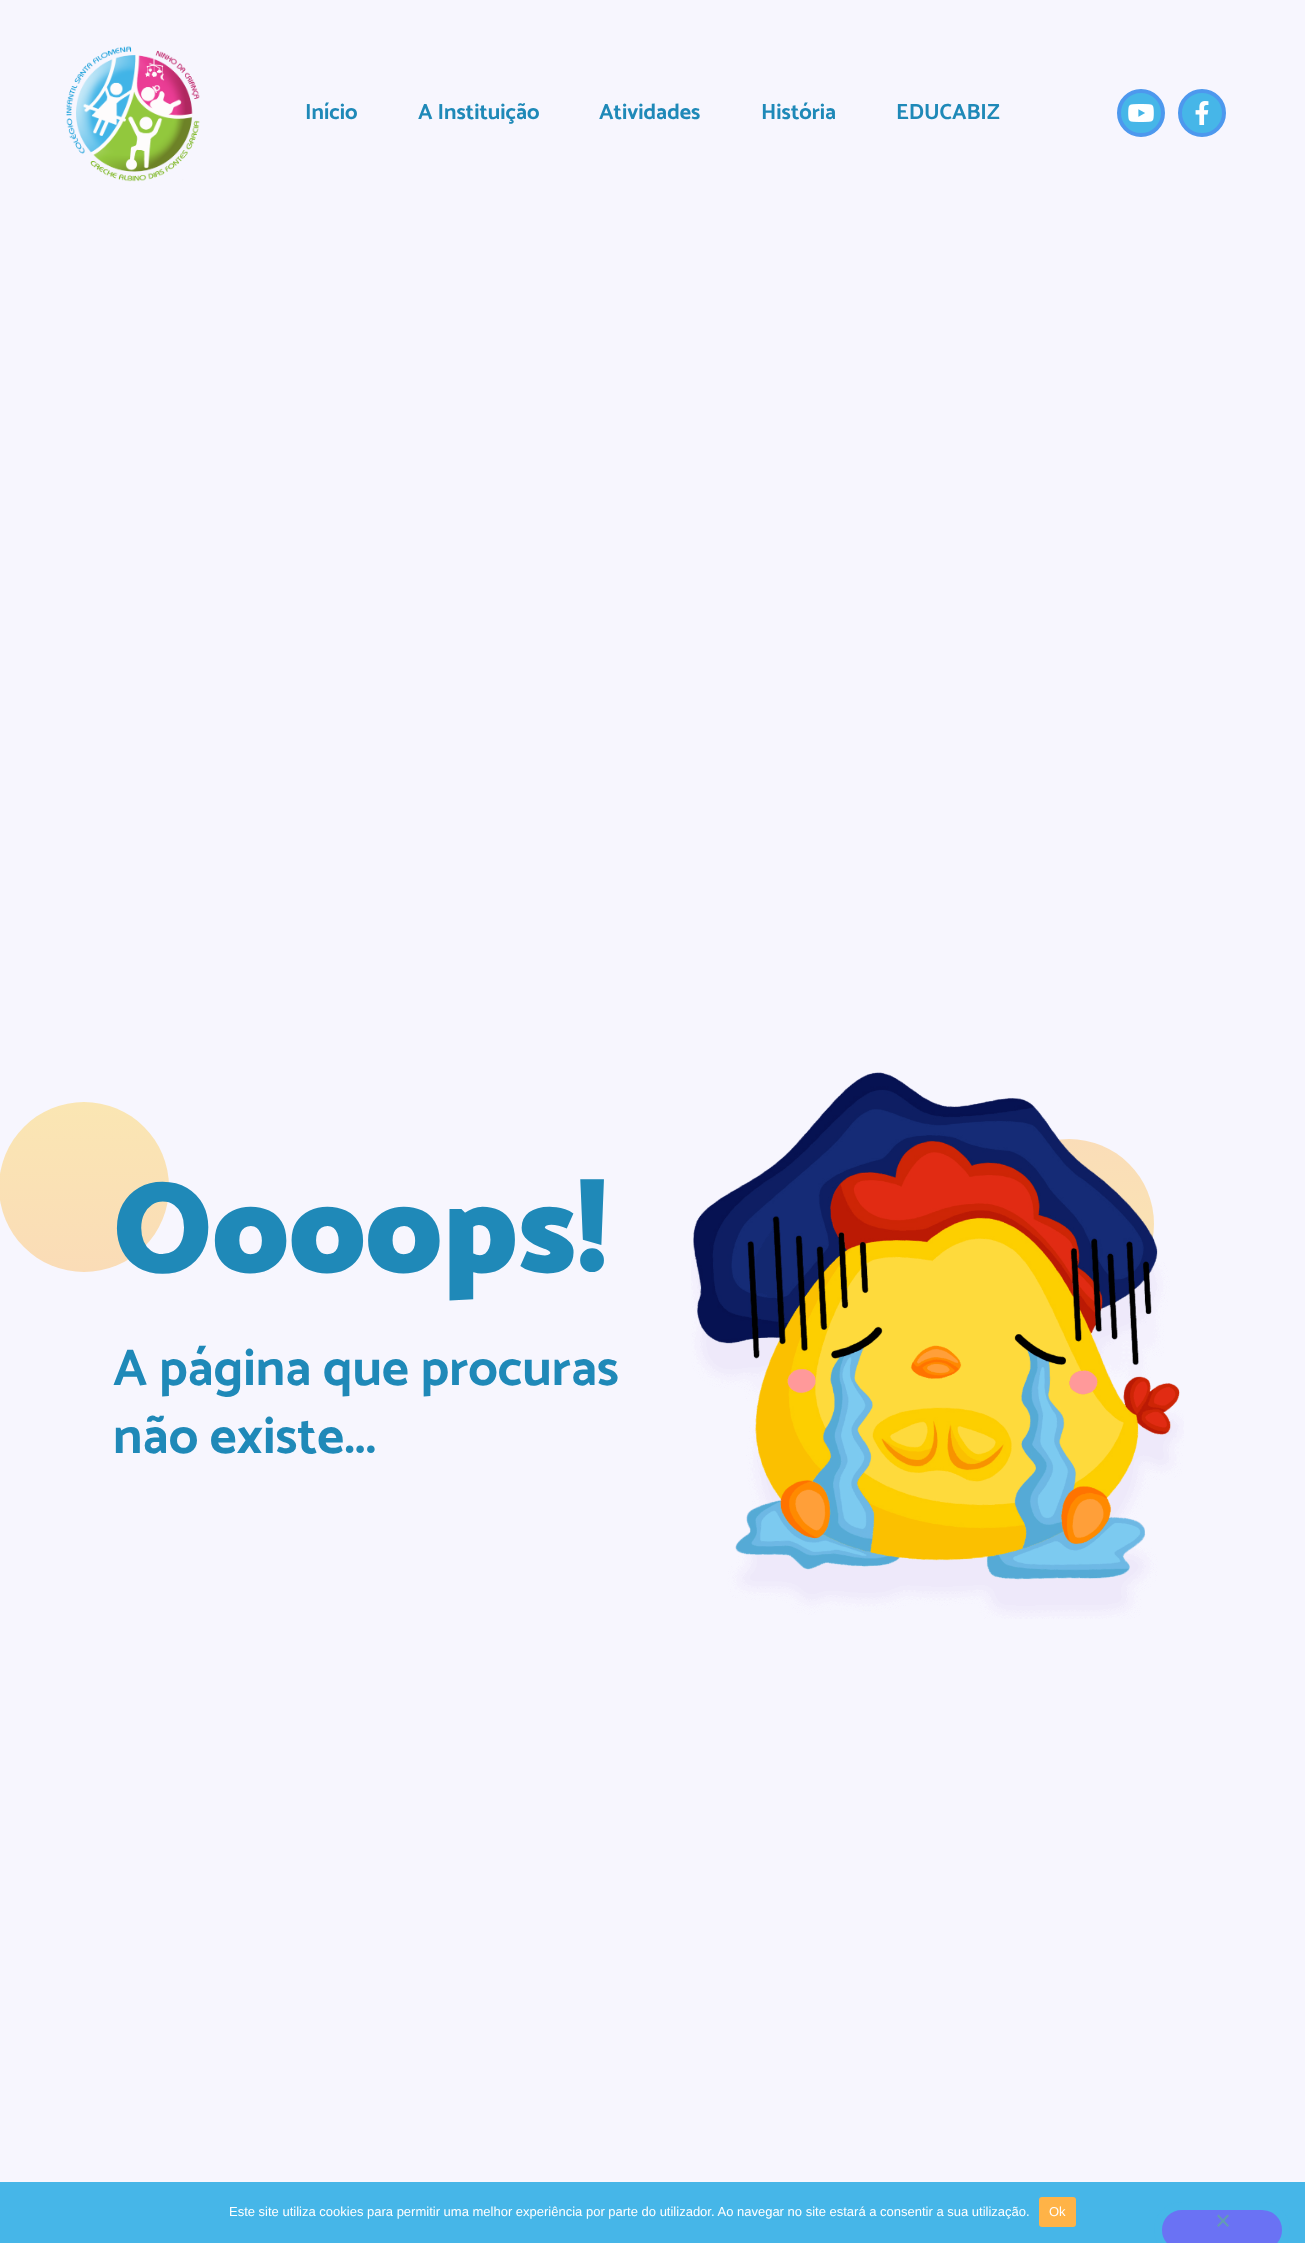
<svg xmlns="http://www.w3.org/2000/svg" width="1305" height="2243">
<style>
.a{font:bold 22px Catamaran;fill:#1f89b8}
.b{font:900 130px Catamaran;fill:#1f89b8}
.c{font:bold 52px Catamaran;fill:#1f89b8}
.d{font:13px Liberation Sans;fill:#fff}
</style>
<defs>
<linearGradient id="g1" gradientUnits="userSpaceOnUse" x1="84" y1="1102" x2="84" y2="1272"><stop offset="0" stop-color="#fae6b3"/><stop offset="1" stop-color="#fadcb7"/></linearGradient>
<linearGradient id="g2" gradientUnits="userSpaceOnUse" x1="1069" y1="1139" x2="1069" y2="1309"><stop offset="0" stop-color="#faddb8"/><stop offset="1" stop-color="#fae6b1"/></linearGradient>
</defs>
<rect width="100%" height="100%" fill="#f7f6fe"/>
<image href="1.png" x="66" y="46" width="134" height="136"/>
<circle fill="#46b6e8" stroke="#4d98ee" stroke-width="4" cx="1141" cy="113" r="22"/>
<image href="2.png" x="1128" y="104" width="26" height="18"/>
<circle fill="#46b6e8" stroke="#4d98ee" stroke-width="4" cx="1202" cy="113" r="22"/>
<image href="3.png" x="1195" y="101" width="14" height="24"/>
<circle fill="url(#g1)" cx="84" cy="1187" r="85"/>
<circle fill="url(#g2)" cx="1069" cy="1224" r="85"/>
<image href="4.png" x="691" y="1072" width="493" height="547"/>
<path fill="#46b6e8" d="M0 2182h1305v61H0z"/>
<rect fill="#ffb347" x="1039" y="2197" width="37" height="30" rx="3"/>
<rect fill="#6a72f4" stroke="#46b6e8" stroke-width="8" x="1158" y="2206" width="128" height="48" rx="24"/>
<path fill="#639bb4" d="M1227.5 2214.5l1.5 1.5l-10.5 11l-1.5-1.5z"/>
<path fill="#639bb4" d="M1217 2216l1.5-1.5l10.5 11l-1.5 1.5z"/>
<text class="a" x="305" y="119">Início</text>
<text class="a" x="418" y="119">A Instituição</text>
<text class="a" x="599" y="119">Atividades</text>
<text class="a" x="761" y="119">História</text>
<text class="a" x="896" y="119">EDUCABIZ</text>
<text class="b" x="113" y="1272">Oooops!</text>
<text class="c" x="113" y="1385">A página que procuras</text>
<text class="c" x="113" y="1453">não existe...</text>
<text class="d" x="229" y="2216">Este site utiliza cookies para permitir uma melhor experiência por parte do utilizador. Ao navegar no site estará a consentir a sua utilização.</text>
<text class="d" x="1049" y="2216">Ok</text>
</svg>
